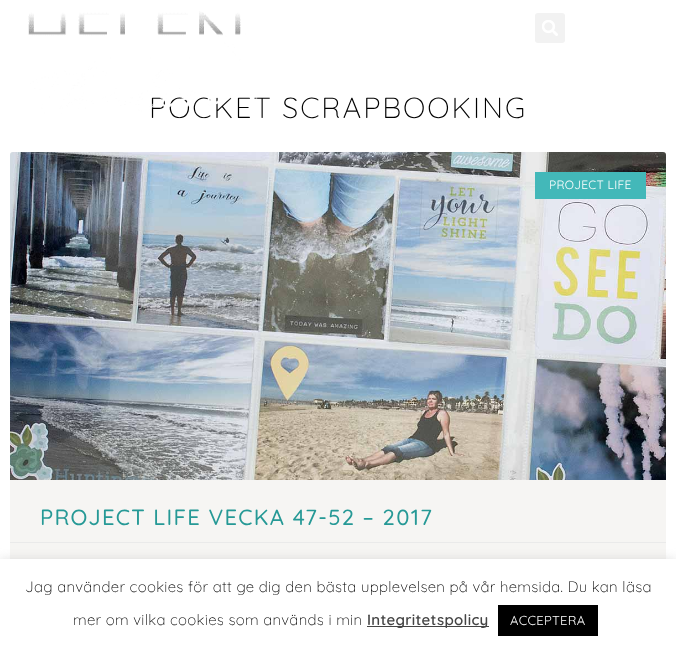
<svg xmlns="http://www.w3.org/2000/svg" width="676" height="653">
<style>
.a{font:300 29px Quicksand;letter-spacing:1.9px;fill:#000}
.b{font:12px Quicksand;letter-spacing:0.3px;fill:#fff}
.c{font:500 22px Quicksand;letter-spacing:1.3px;fill:#269996}
.d{font:300 15px Quicksand;letter-spacing:0.3px;fill:#000}
.e{font:600 15px Quicksand;letter-spacing:0.3px;fill:#444}
.f{font:13px Quicksand;letter-spacing:0.3px;fill:#fff}
</style>
<rect width="100%" height="100%" fill="#fff"/>
<rect fill="#f2f2f2" x="535" y="13" width="30" height="30" rx="3"/>
<image href="2.png" x="542" y="20" width="16" height="16"/>
<rect fill="#f6f5f3" x="10" y="152" width="656" height="439" rx="3"/>
<image href="3.png" x="10" y="152" width="656" height="328"/>
<path fill="#43b8b9" d="M535 172h111v27H535z"/>
<path fill="#eaeaea" d="M10 542h656v1H10z"/>
<path fill="#acabab4d" filter="blur(5px)" d="M0 558h676v94H0z"/>
<path fill="#fff" d="M0 559h676v94H0z"/>
<path fill="#444" d="M367 626h122v1H367z"/>
<path fill="#000" d="M498 605h100v31H498z"/>
<text class="a" x="149" y="118">POCKET SCRAPBOOKING</text>
<image href="1.png" x="28" y="11" width="230" height="108"/>
<text class="b" x="549" y="189">PROJECT LIFE</text>
<text class="c" x="40" y="525">PROJECT LIFE VECKA 47-52 – 2017</text>
<text class="d" x="25" y="592">Jag använder cookies för att ge dig den bästa upplevelsen på vår hemsida. Du kan läsa</text>
<text class="d" x="73" y="625">mer om vilka cookies som används i min</text>
<text class="e" x="367" y="625">Integritetspolicy</text>
<text class="f" x="510" y="625">ACCEPTERA</text>
</svg>
